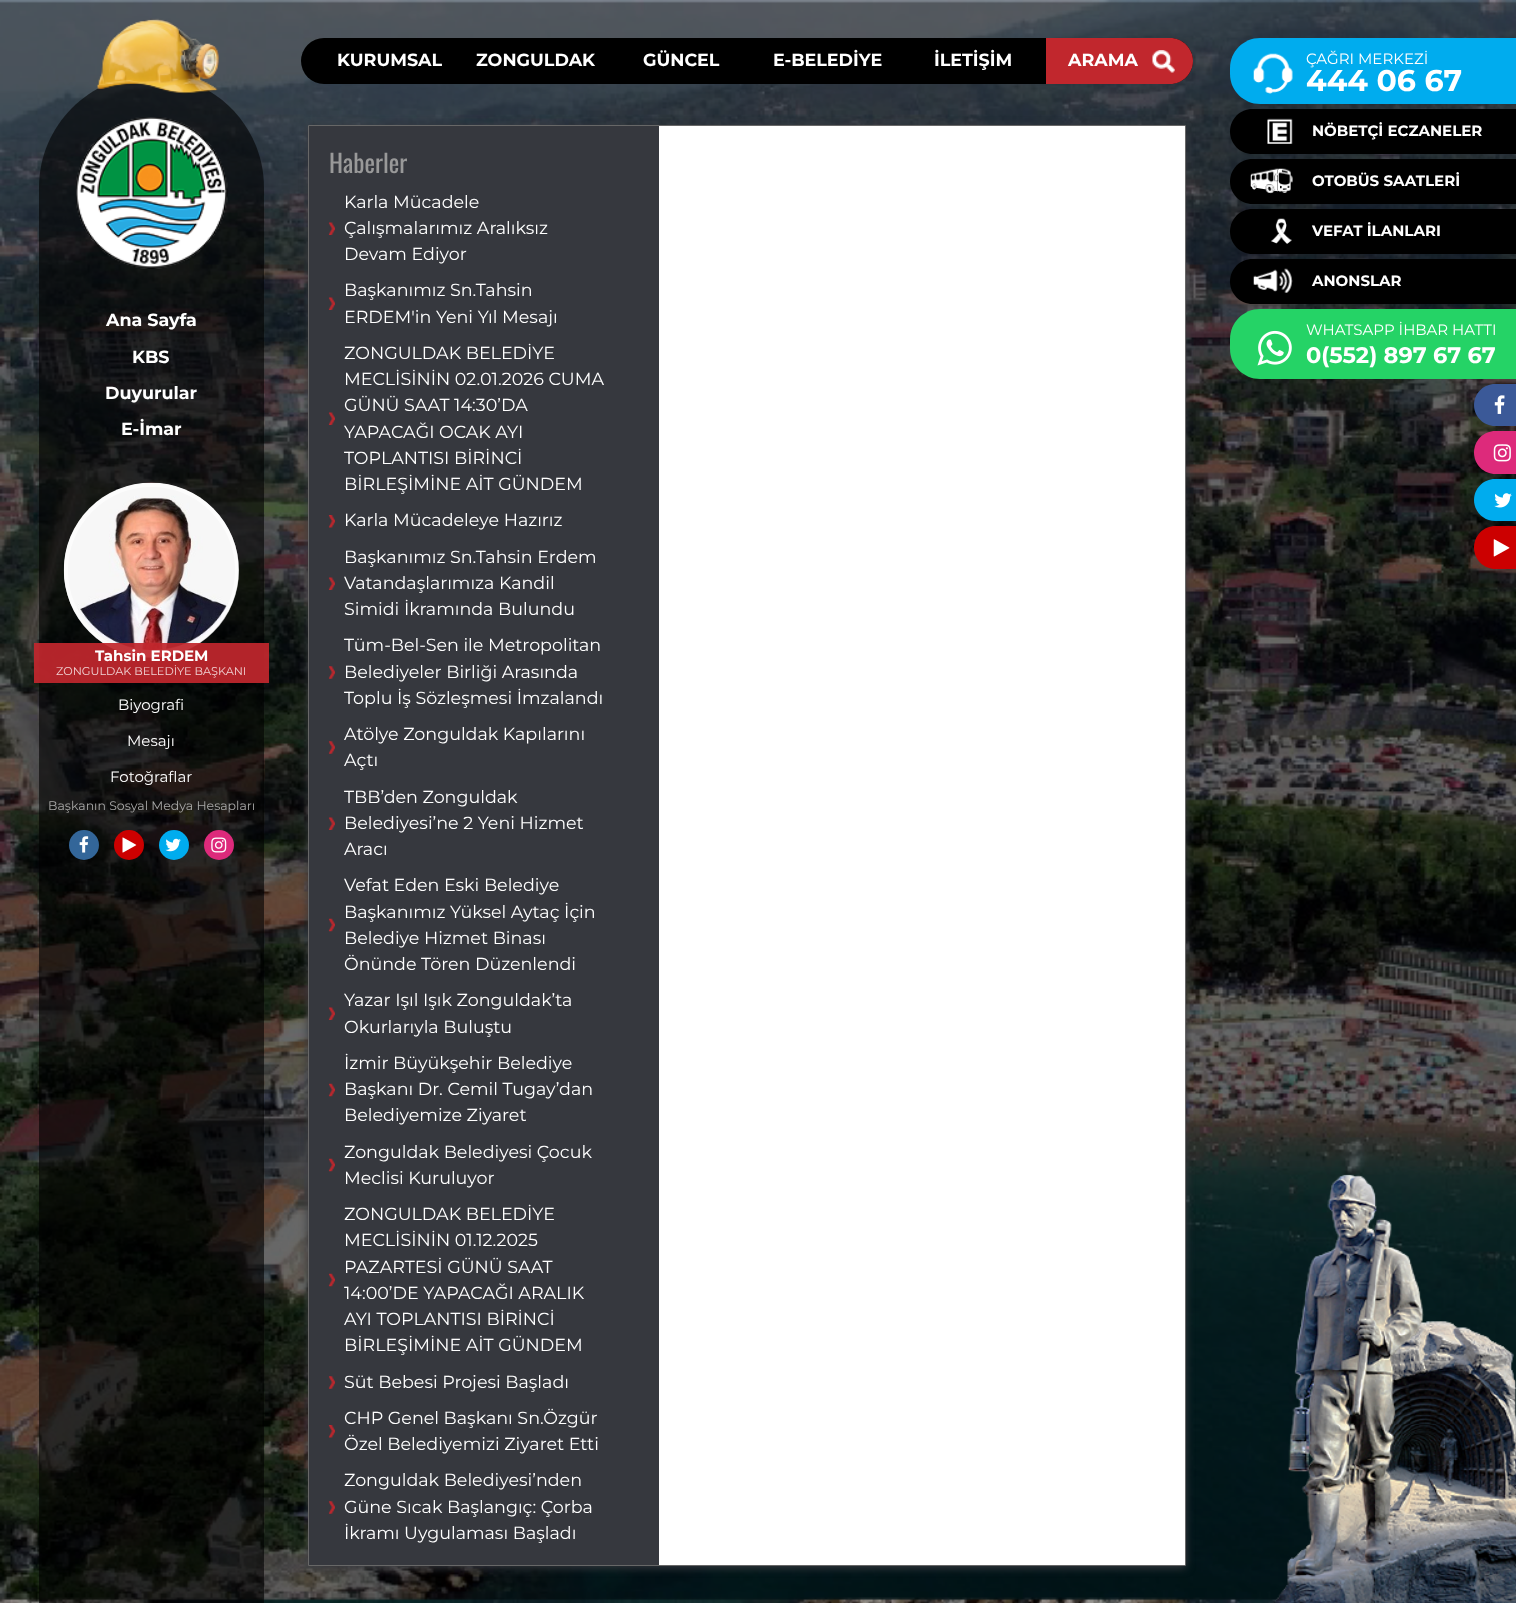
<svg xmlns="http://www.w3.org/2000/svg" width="1516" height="1603">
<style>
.a{font:bold 17.5px Montserrat;fill:#fff}
.b{font:25px Oswald;fill:#999}
.c{font:17.5px Montserrat;fill:#fff}
.d{font:15px Montserrat;fill:#fff}
.e{font:bold 30px Montserrat;fill:#fff}
.f{font:bold 15px Montserrat;fill:#fff}
.g{font:bold 22.5px Montserrat;fill:#fff}
.h{font:11.25px Montserrat;fill:#f0d3d4}
.i{font:12.5px Montserrat;fill:#a7a7a6}
</style>
<rect width="100%" height="100%" fill="#fff"/>
<image href="1.png" x="0" y="0" width="1516" height="1603"/>
<rect fill="#000" x="301" y="38" width="892" height="46" rx="23"/>
<path fill="#c1272d" d="M1046 38h124c12.5 0 23 10.5 23 23c0 12.5-10.5 23-23 23h-124z"/>
<image href="2.png" x="1152" y="50" width="23" height="23"/>
<path fill="#36383e" filter="blur(4px)" d="M308 126h878v1442H308z"/>
<path fill="#fff" d="M659 126h526v1439H659z"/>
<path fill="none" stroke="#676767" d="M308.5 125.5h877v1440H308.5z"/>
<path fill="#36383e" d="M309 126h350v1439H309z"/>
<image href="3.png" x="328" y="222" width="7" height="13"/>
<image href="3.png" x="328" y="297" width="7" height="13"/>
<image href="3.png" x="328" y="412" width="7" height="13"/>
<image href="4.png" x="328" y="515" width="7" height="13"/>
<image href="3.png" x="328" y="577" width="7" height="13"/>
<image href="5.png" x="328" y="666" width="7" height="13"/>
<image href="5.png" x="328" y="741" width="7" height="13"/>
<image href="3.png" x="328" y="817" width="7" height="13"/>
<image href="6.png" x="328" y="918" width="7" height="14"/>
<image href="3.png" x="328" y="1007" width="7" height="13"/>
<image href="6.png" x="328" y="1083" width="7" height="14"/>
<image href="6.png" x="328" y="1158" width="7" height="14"/>
<image href="6.png" x="328" y="1273" width="7" height="14"/>
<image href="5.png" x="328" y="1376" width="7" height="13"/>
<image href="4.png" x="328" y="1425" width="7" height="13"/>
<image href="5.png" x="328" y="1501" width="7" height="13"/>
<path fill="#00acee" d="M1260 38h256v66h-256c-16.5 0-30-13.5-30-30v-6c0-16.5 13.5-30 30-30z"/>
<image href="7.png" x="1253" y="53" width="40" height="41"/>
<path fill="#000" d="M1252.5 109h263.5v45h-263.5c-12.5 0-22.5-10-22.5-22.5c0-12.5 10-22.5 22.5-22.5z"/>
<image href="8.png" x="1267" y="118" width="26" height="26"/>
<path fill="#000" d="M1252.5 159h263.5v45h-263.5c-12.5 0-22.5-10-22.5-22.5c0-12.5 10-22.5 22.5-22.5z"/>
<image href="9.png" x="1250" y="168" width="43" height="26"/>
<path fill="#000" d="M1252.5 209h263.5v45h-263.5c-12.5 0-22.5-10-22.5-22.5c0-12.5 10-22.5 22.5-22.5z"/>
<image href="10.png" x="1271" y="218" width="21" height="26"/>
<path fill="#000" d="M1252.5 259h263.5v45h-263.5c-12.5 0-22.5-10-22.5-22.5c0-12.5 10-22.5 22.5-22.5z"/>
<image href="11.png" x="1253" y="268" width="40" height="25"/>
<path fill="#25d366" d="M1260 309h256v70h-256c-16.5 0-30-13.5-30-30v-10c0-16.5 13.5-30 30-30z"/>
<image href="12.png" x="1257" y="330" width="35" height="36"/>
<path fill="#3b5998" d="M1495 384h21v42h-21c-11.5 0-21-9.5-21-21c0-11.5 9.5-21 21-21z"/>
<image href="13.png" x="1494" y="395" width="11" height="19"/>
<path fill="#dd2a7b" d="M1495.5 431h20.5v43h-20.5c-12 0-21.5-9.5-21.5-21.5c0-12 9.5-21.5 21.5-21.5z"/>
<image href="14.png" x="1493" y="444" width="18" height="18"/>
<path fill="#00acee" d="M1495 479h21v42h-21c-11.5 0-21-9.5-21-21c0-11.5 9.5-21 21-21z"/>
<image href="15.png" x="1494" y="493" width="18" height="15"/>
<path fill="#c00" d="M1495.5 526h20.5v43h-20.5c-12 0-21.5-9.5-21.5-21.5c0-12 9.5-21.5 21.5-21.5z"/>
<image href="16.png" x="1493" y="539" width="17" height="18"/>
<path fill="#00000099" d="M151.5 75c62 0 112.5 50.5 112.5 112.5v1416.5h-225v-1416.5c0-62 50.5-112.5 112.5-112.5z"/>
<image href="17.png" x="97" y="18" width="122" height="76"/>
<image href="18.png" x="76" y="117" width="152" height="152"/>
<image href="19.png" x="63" y="482" width="176" height="176"/>
<circle fill="none" stroke="#ffffff99" stroke-width="4" cx="151.5" cy="570.5" r="85.5"/>
<path fill="#c1272ded" d="M34 643h235v40H34z"/>
<circle fill="#369" cx="84" cy="845" r="15"/>
<image href="20.png" x="79" y="836" width="10" height="17"/>
<circle fill="#c00" cx="129" cy="845" r="15"/>
<image href="21.png" x="122" y="837" width="15" height="16"/>
<circle fill="#00acee" cx="174" cy="845" r="15"/>
<image href="22.png" x="165" y="838" width="16" height="14"/>
<circle fill="#dd2a7b" cx="219" cy="845" r="15"/>
<image href="23.png" x="211" y="837" width="16" height="16"/>
<image href="24.png" x="1272" y="1174" width="244" height="429"/>
<text class="a" x="337" y="66">KURUMSAL</text>
<text class="a" x="476" y="66">ZONGULDAK</text>
<text class="a" x="643" y="66">GÜNCEL</text>
<text class="a" x="773" y="66">E-BELEDİYE</text>
<text class="a" x="934" y="66">İLETİŞİM</text>
<text class="a" x="1068" y="66">ARAMA</text>
<text class="b" x="329" y="173">Haberler</text>
<text class="c" x="344" y="208">Karla Mücadele</text>
<text class="c" x="344" y="234">Çalışmalarımız Aralıksız</text>
<text class="c" x="344" y="260">Devam Ediyor</text>
<text class="c" x="344" y="296">Başkanımız Sn.Tahsin</text>
<text class="c" x="344" y="323">ERDEM'in Yeni Yıl Mesajı</text>
<text class="c" x="344" y="359">ZONGULDAK BELEDİYE</text>
<text class="c" x="344" y="385">MECLİSİNİN 02.01.2026 CUMA</text>
<text class="c" x="344" y="411">GÜNÜ SAAT 14:30’DA</text>
<text class="c" x="344" y="438">YAPACAĞI OCAK AYI</text>
<text class="c" x="344" y="464">TOPLANTISI BİRİNCİ</text>
<text class="c" x="344" y="490">BİRLEŞİMİNE AİT GÜNDEM</text>
<text class="c" x="344" y="526">Karla Mücadeleye Hazırız</text>
<text class="c" x="344" y="563">Başkanımız Sn.Tahsin Erdem</text>
<text class="c" x="344" y="589">Vatandaşlarımıza Kandil</text>
<text class="c" x="344" y="615">Simidi İkramında Bulundu</text>
<text class="c" x="344" y="651">Tüm-Bel-Sen ile Metropolitan</text>
<text class="c" x="344" y="678">Belediyeler Birliği Arasında</text>
<text class="c" x="344" y="704">Toplu İş Sözleşmesi İmzalandı</text>
<text class="c" x="344" y="740">Atölye Zonguldak Kapılarını</text>
<text class="c" x="344" y="766">Açtı</text>
<text class="c" x="344" y="803">TBB’den Zonguldak</text>
<text class="c" x="344" y="829">Belediyesi’ne 2 Yeni Hizmet</text>
<text class="c" x="344" y="855">Aracı</text>
<text class="c" x="344" y="891">Vefat Eden Eski Belediye</text>
<text class="c" x="344" y="918">Başkanımız Yüksel Aytaç İçin</text>
<text class="c" x="344" y="944">Belediye Hizmet Binası</text>
<text class="c" x="344" y="970">Önünde Tören Düzenlendi</text>
<text class="c" x="344" y="1006">Yazar Işıl Işık Zonguldak’ta</text>
<text class="c" x="344" y="1033">Okurlarıyla Buluştu</text>
<text class="c" x="344" y="1069">İzmir Büyükşehir Belediye</text>
<text class="c" x="344" y="1095">Başkanı Dr. Cemil Tugay’dan</text>
<text class="c" x="344" y="1121">Belediyemize Ziyaret</text>
<text class="c" x="344" y="1158">Zonguldak Belediyesi Çocuk</text>
<text class="c" x="344" y="1184">Meclisi Kuruluyor</text>
<text class="c" x="344" y="1220">ZONGULDAK BELEDİYE</text>
<text class="c" x="344" y="1246">MECLİSİNİN 01.12.2025</text>
<text class="c" x="344" y="1273">PAZARTESİ GÜNÜ SAAT</text>
<text class="c" x="344" y="1299">14:00’DE YAPACAĞI ARALIK</text>
<text class="c" x="344" y="1325">AYI TOPLANTISI BİRİNCİ</text>
<text class="c" x="344" y="1351">BİRLEŞİMİNE AİT GÜNDEM</text>
<text class="c" x="344" y="1388">Süt Bebesi Projesi Başladı</text>
<text class="c" x="344" y="1424">CHP Genel Başkanı Sn.Özgür</text>
<text class="c" x="344" y="1450">Özel Belediyemizi Ziyaret Etti</text>
<text class="c" x="344" y="1486">Zonguldak Belediyesi’nden</text>
<text class="c" x="344" y="1513">Güne Sıcak Başlangıç: Çorba</text>
<text class="c" x="344" y="1539">İkramı Uygulaması Başladı</text>
<text class="d" x="1306" y="64">ÇAĞRI MERKEZİ</text>
<text class="e" x="1306" y="91">444 06 67</text>
<text class="f" x="1312" y="136">NÖBETÇİ ECZANELER</text>
<text class="f" x="1312" y="186">OTOBÜS SAATLERİ</text>
<text class="f" x="1312" y="236">VEFAT İLANLARI</text>
<text class="f" x="1312" y="286">ANONSLAR</text>
<text class="d" x="1306" y="335">WHATSAPP İHBAR HATTI</text>
<text class="g" x="1306" y="363">0(552) 897 67 67</text>
<text class="a" x="106" y="326">Ana Sayfa</text>
<text class="a" x="132" y="363">KBS</text>
<text class="a" x="105" y="399">Duyurular</text>
<text class="a" x="121" y="435">E-İmar</text>
<text class="f" x="95" y="661">Tahsin ERDEM</text>
<text class="h" x="56" y="675">ZONGULDAK BELEDİYE BAŞKANI</text>
<text class="d" x="118" y="710">Biyografi</text>
<text class="d" x="127" y="746">Mesajı</text>
<text class="d" x="110" y="782">Fotoğraflar</text>
<text class="i" x="48" y="810">Başkanın Sosyal Medya Hesapları</text>
</svg>
